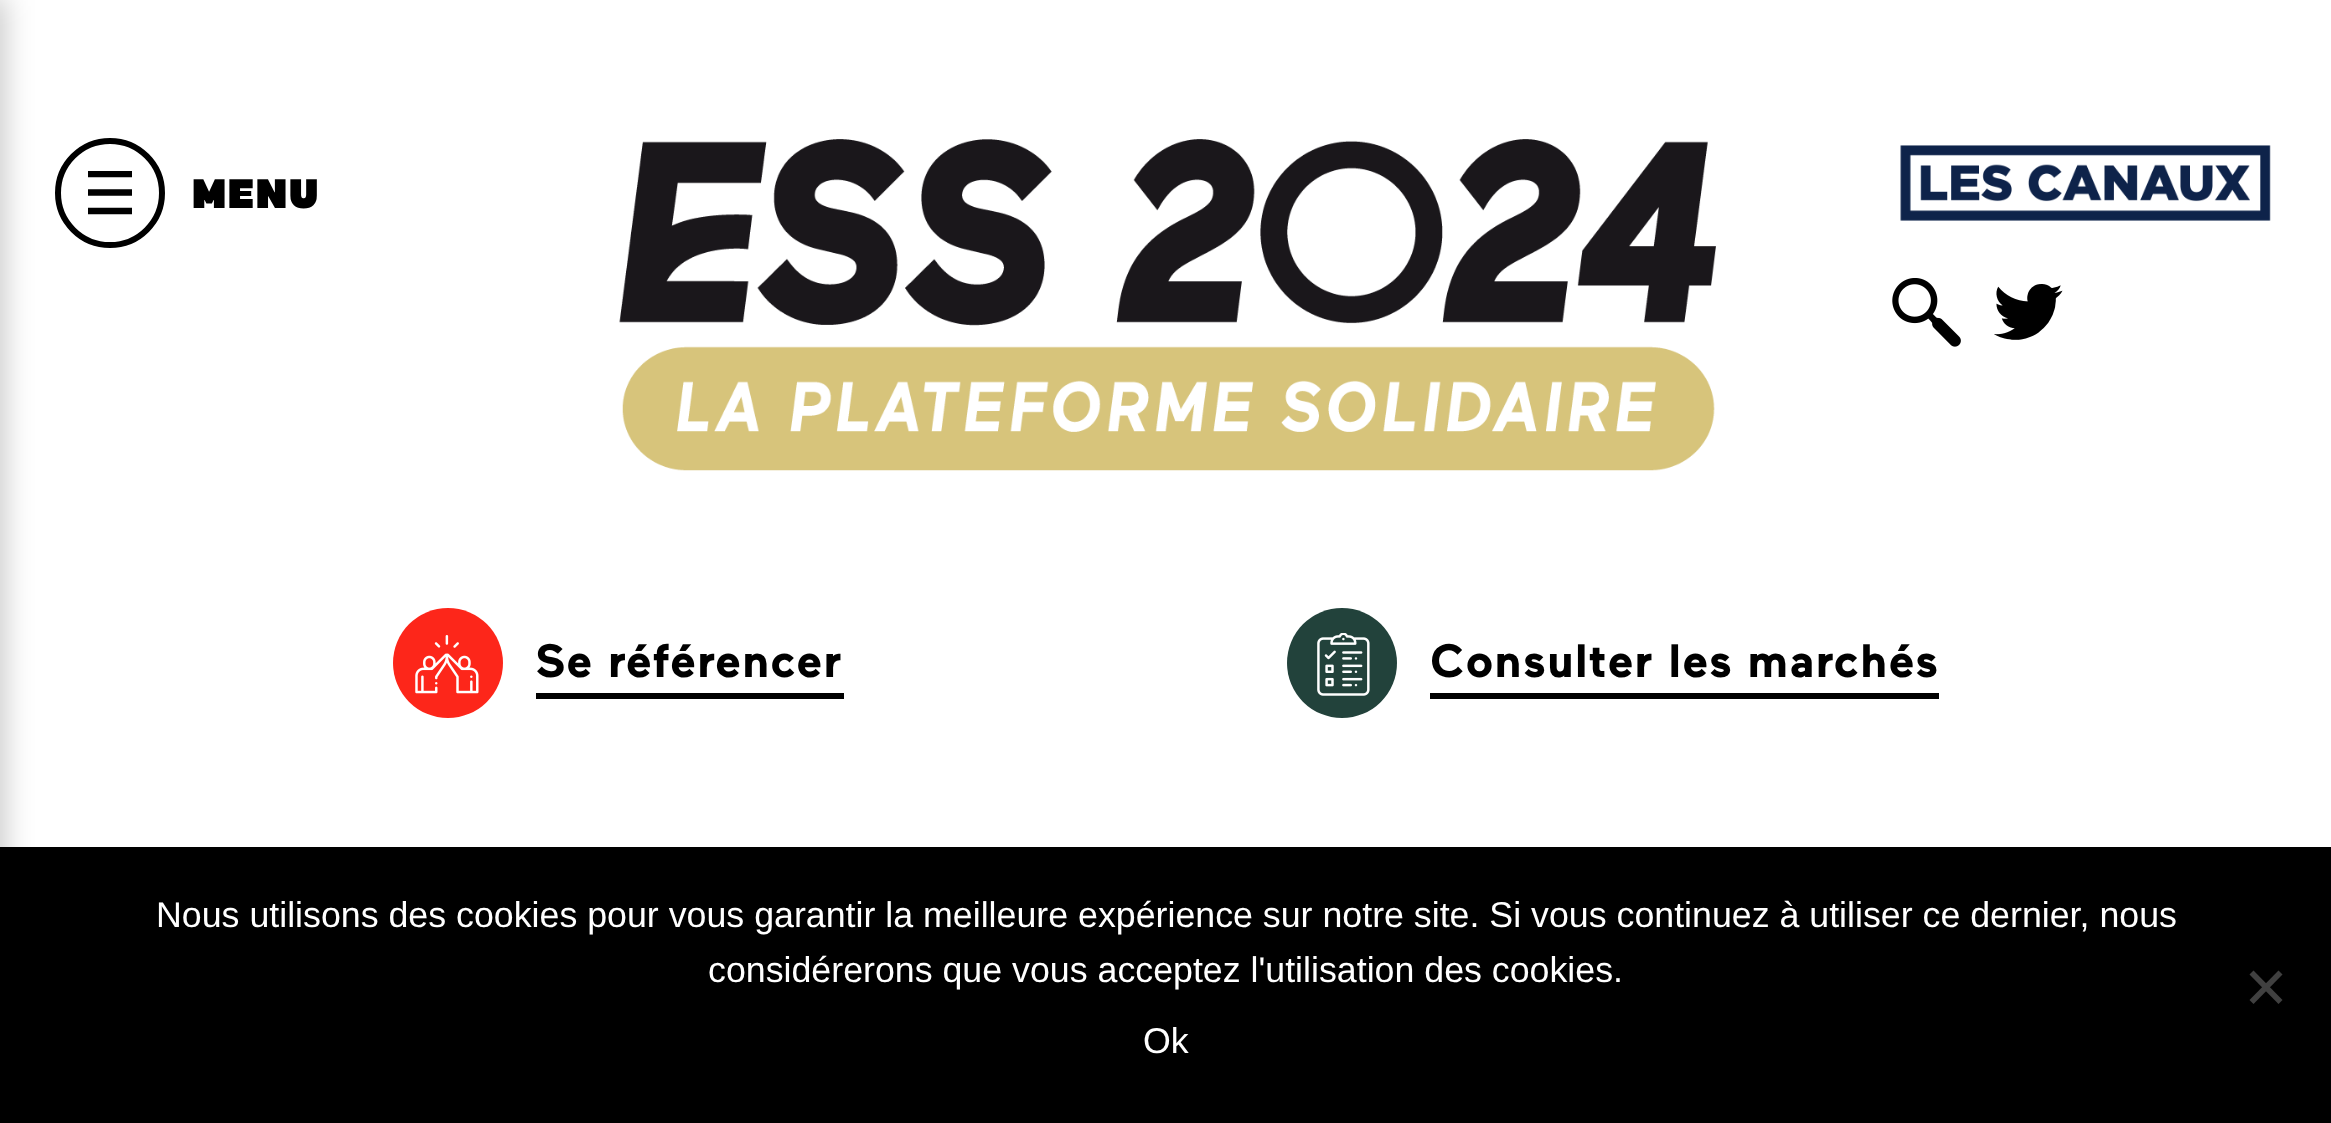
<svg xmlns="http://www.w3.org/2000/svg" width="2331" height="1123">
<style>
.a{font:900 41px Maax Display;letter-spacing:3.5px;fill:#000}
.b{font:bold 46.75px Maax;letter-spacing:1.4px;fill:#000}
.c{font:35.75px Liberation Sans;fill:#fff}
</style>
<defs>
<clipPath id="clip1"><path d="M88 171h44v44H88z"/></clipPath>
</defs>
<rect width="100%" height="100%" fill="#fff"/>
<path fill="#00000033" filter="blur(14px)" d="M-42 -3h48v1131H-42z"/>
<circle fill="none" stroke="#000" stroke-width="6" cx="110" cy="193" r="52"/>
<g clip-path="url(#clip1)">
<path fill="none" stroke="#000" stroke-width="6.4" d="M132 174h-44m44 37h-44m44-18.5h-44"/>
</g>
<image href="1.png" x="619" y="139" width="1097" height="332"/>
<image href="2.png" x="1900" y="145" width="371" height="76"/>
<image href="3.png" x="1892" y="278" width="69" height="69"/>
<image href="4.png" x="1994" y="284" width="69" height="56"/>
<circle fill="#fd261a" cx="448" cy="663" r="55"/>
<image href="5.png" x="415" y="635" width="64" height="59"/>
<path fill="#000" d="M536 693h308v6H536z"/>
<circle fill="#22423b" cx="1342" cy="663" r="55"/>
<image href="6.png" x="1317" y="633" width="53" height="63"/>
<path fill="#000" d="M1430 693h509v6H1430z"/>
<path fill="#000" d="M0 847h2331v276H0z"/>
<path fill="#404040" d="M2278.5 970.5l4 4l-29 29.5l-4-4z"/>
<path fill="#404040" d="M2249.5 974.5l4-4l29 29.5l-4 4z"/>
<text class="a" x="193" y="208">MENU</text>
<text class="b" x="535" y="677">Se référencer</text>
<text class="b" x="1430" y="677">Consulter les marchés</text>
<text class="c" x="156" y="927">Nous utilisons des cookies pour vous garantir la meilleure expérience sur notre site. Si vous continuez à utiliser ce dernier, nous</text>
<text class="c" x="708" y="982">considérerons que vous acceptez l'utilisation des cookies.</text>
<text class="c" x="1143" y="1053">Ok</text>
</svg>
